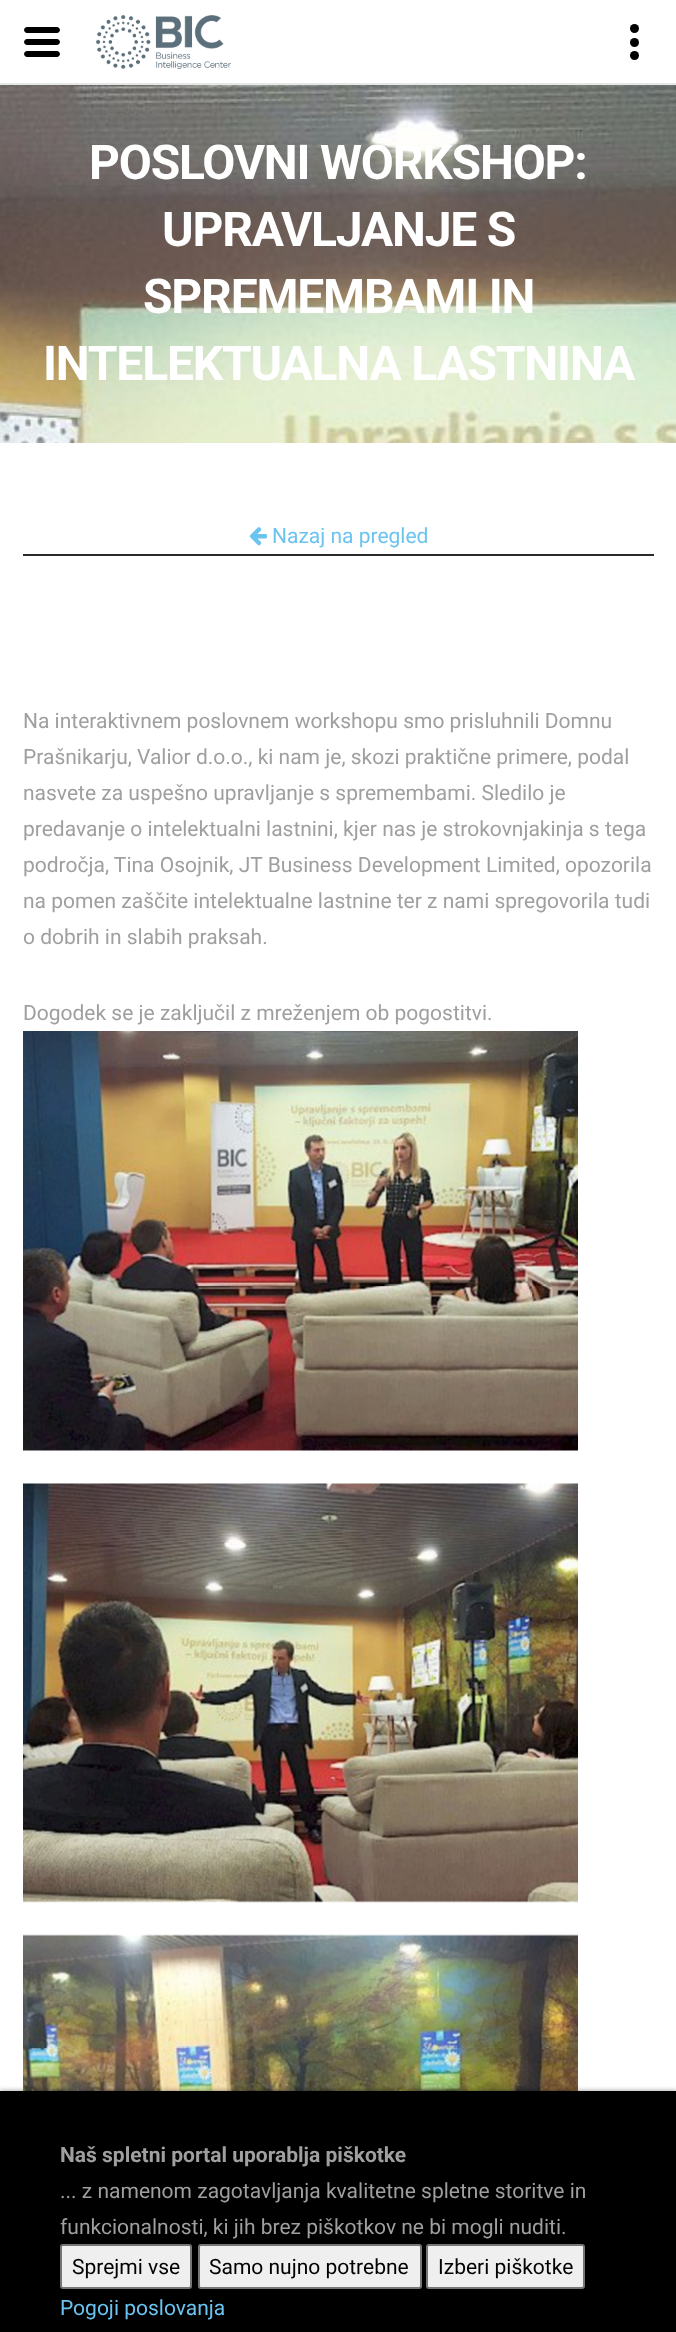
<svg xmlns="http://www.w3.org/2000/svg" width="676" height="2332">
<style>
.a{font:bold 48px Roboto;letter-spacing:-1.2px;fill:#fff}
.b{font:21px Roboto;fill:#6bc3f0}
.c{font:21px Roboto;fill:#9f9f9f}
.d{font:bold 21px Roboto;fill:#9f9f9f}
.e{font:21px Roboto;fill:#000}
</style>
<rect width="100%" height="100%" fill="#fff"/>
<path fill="#000" d="M57 45h-30c-1.5 0-3-1.5-3-3c0-1.5 1.5-3 3-3h30c1.5 0 3 1.5 3 3c0 1.5-1.5 3-3 3zm0 12h-30c-1.5 0-3-1.5-3-3c0-1.5 1.5-3 3-3h30c1.5 0 3 1.5 3 3c0 1.5-1.5 3-3 3zm0-24h-30c-1.5 0-3-1.5-3-3c0-1.5 1.5-3 3-3h30c1.5 0 3 1.5 3 3c0 1.5-1.5 3-3 3z"/>
<image href="1.png" x="96" y="15" width="135" height="54"/>
<path fill="#e5e7e9" d="M0 83h676v2H0z"/>
<circle fill="#000" cx="634.5" cy="42.5" r="4.5"/>
<circle fill="#000" cx="634.5" cy="28.5" r="4.5"/>
<circle fill="#000" cx="634.5" cy="55.5" r="4.5"/>
<image href="2.png" x="0" y="85" width="676" height="358"/>
<image href="3.png" x="249" y="527" width="18" height="19"/>
<path fill="#2a2b2b" d="M23 554h631v2H23z"/>
<image href="4.png" x="23" y="1031" width="555" height="420"/>
<image href="5.png" x="23" y="1483" width="555" height="420"/>
<image href="6.png" x="23" y="1934" width="555" height="157"/>
<path fill="#0000004d" filter="blur(2px)" d="M0 2090h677v241H0z"/>
<path fill="#000" d="M0 2091h676v241H0z"/>
<rect fill="#efefef" stroke="#767676" stroke-width="2" x="61" y="2245" width="130" height="43" rx="2"/>
<rect fill="#efefef" stroke="#767676" stroke-width="2" x="199" y="2245" width="222" height="43" rx="2"/>
<rect fill="#efefef" stroke="#767676" stroke-width="2" x="427" y="2245" width="157" height="43" rx="2"/>
<text class="a" x="89" y="179">POSLOVNI WORKSHOP:</text>
<text class="a" x="162" y="246">UPRAVLJANJE S</text>
<text class="a" x="143" y="313">SPREMEMBAMI IN</text>
<text class="a" x="43" y="380">INTELEKTUALNA LASTNINA</text>
<text class="b" x="272" y="543">Nazaj na pregled</text>
<text class="c" x="23" y="728">Na interaktivnem poslovnem workshopu smo prisluhnili Domnu</text>
<text class="c" x="23" y="764">Prašnikarju, Valior d.o.o., ki nam je, skozi praktične primere, podal</text>
<text class="c" x="23" y="800">nasvete za uspešno upravljanje s spremembami. Sledilo je</text>
<text class="c" x="23" y="836">predavanje o intelektualni lastnini, kjer nas je strokovnjakinja s tega</text>
<text class="c" x="23" y="872">področja, Tina Osojnik, JT Business Development Limited, opozorila</text>
<text class="c" x="23" y="908">na pomen zaščite intelektualne lastnine ter z nami spregovorila tudi</text>
<text class="c" x="23" y="944">o dobrih in slabih praksah.</text>
<text class="c" x="23" y="1020">Dogodek se je zaključil z mreženjem ob pogostitvi.</text>
<text class="d" x="60" y="2162">Naš spletni portal uporablja piškotke</text>
<text class="c" x="60" y="2198">... z namenom zagotavljanja kvalitetne spletne storitve in</text>
<text class="c" x="60" y="2234">funkcionalnosti, ki jih brez piškotkov ne bi mogli nuditi.</text>
<text class="e" x="72" y="2274">Sprejmi vse</text>
<text class="e" x="209" y="2274">Samo nujno potrebne</text>
<text class="e" x="438" y="2274">Izberi piškotke</text>
<text class="b" x="60" y="2315">Pogoji poslovanja</text>
</svg>
